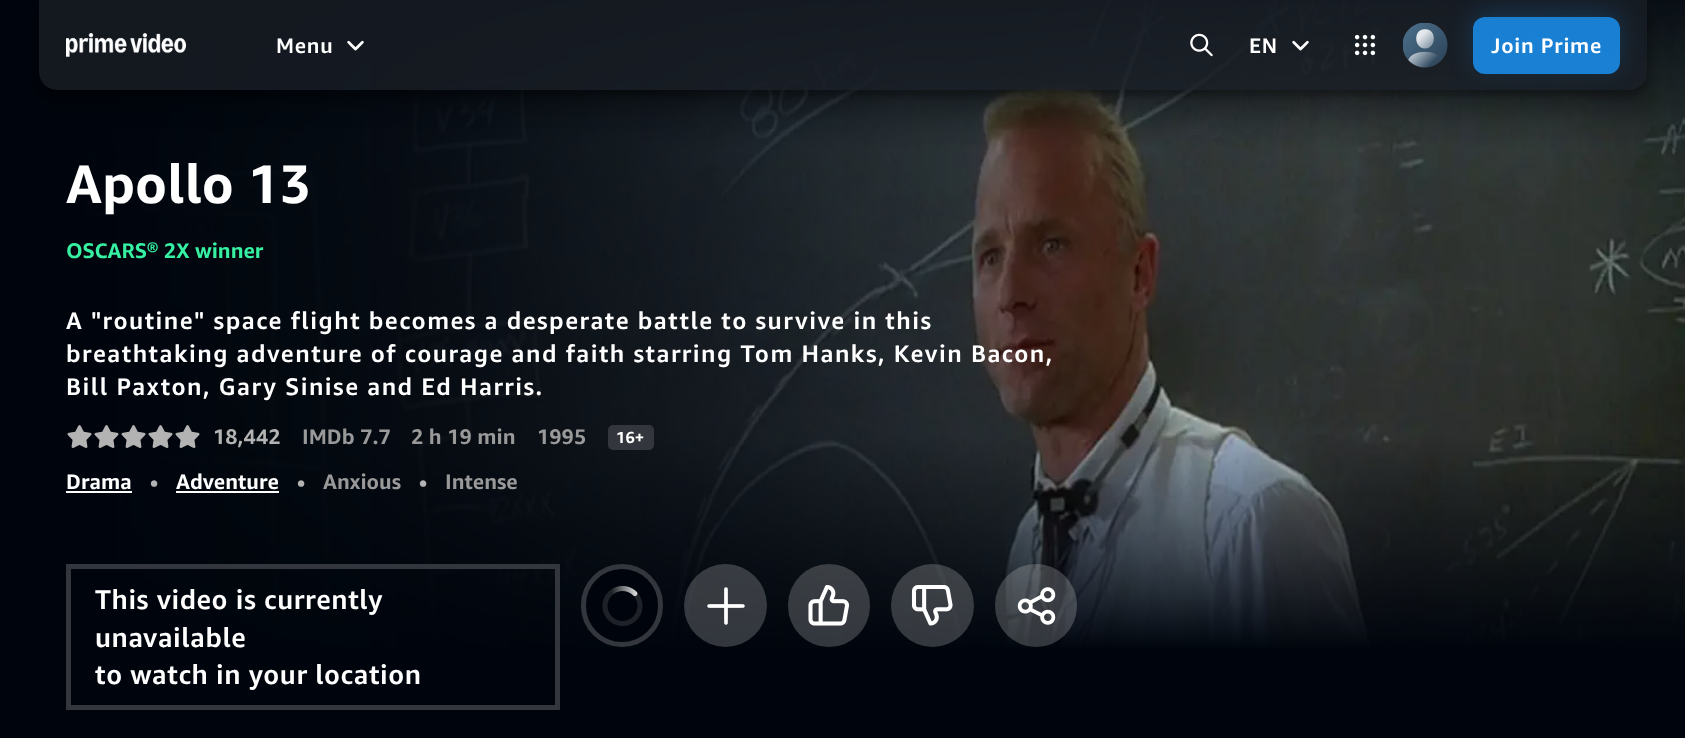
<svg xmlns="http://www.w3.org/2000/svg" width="1685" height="738">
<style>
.a{font:600 21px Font;letter-spacing:0.75px;fill:#fff}
.b{font:bold 54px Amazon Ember;fill:#fff}
.c{font:bold 21px Amazon Ember;fill:#37f1a3}
.d{font:600 24px Font;letter-spacing:1.45px;fill:#fff}
.e{font:bold 21px Amazon Ember;fill:#b3b3b3}
.f{font:bold 21px Amazon Ember;fill:#999}
.g{font:bold 16px Amazon Ember;fill:#fff}
.h{font:bold 21px Amazon Ember;fill:#fff}
.i{font:600 27px Font;letter-spacing:0.55px;fill:#fff}
</style>
<defs>
<clipPath id="clip1"><path d="M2 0h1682v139h-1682zm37 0h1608v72c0 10-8 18-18 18h-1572c-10 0-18-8-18-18z" clip-rule="evenodd"/></clipPath>
<clipPath id="clip2"><path d="M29 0h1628v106h-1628zm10 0h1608v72c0 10-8 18-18 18h-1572c-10 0-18-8-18-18z" clip-rule="evenodd"/></clipPath>
<clipPath id="clip3"><path d="M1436 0h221v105h-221zm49 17h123c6.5 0 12 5.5 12 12v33c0 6.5-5.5 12-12 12h-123c-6.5 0-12-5.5-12-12v-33c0-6.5 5.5-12 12-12z" clip-rule="evenodd"/></clipPath>
</defs>
<rect width="100%" height="100%" fill="#00050d"/>
<image href="7.png" x="0" y="0" width="1685" height="648"/>
<path fill="#191e25cc" d="M39 0h1608v72c0 10-8 18-18 18h-1572c-10 0-18-8-18-18z"/>
<g clip-path="url(#clip1)">
<rect fill="#00000026" filter="blur(9px)" x="30" y="3" width="1626" height="108" rx="27"/>
</g>
<g clip-path="url(#clip2)">
<rect fill="#0000004d" filter="blur(3px)" x="39" y="6" width="1608" height="90" rx="18"/>
</g>
<image href="1.png" x="66" y="33" width="120" height="24"/>
<image href="2.png" x="347" y="40" width="17" height="11"/>
<image href="3.png" x="1190" y="33" width="23" height="24"/>
<image href="4.png" x="1292" y="40" width="17" height="11"/>
<image href="5.png" x="1354" y="34" width="22" height="22"/>
<g clip-path="url(#clip3)">
<rect fill="#1a98ff33" filter="blur(12px)" x="1473" y="11" width="147" height="57" rx="12"/>
</g>
<image href="6.png" x="1403" y="23" width="45" height="45"/>
<rect fill="#1a98ffcc" x="1473" y="17" width="147" height="57" rx="12"/>
<image href="8.png" x="67" y="425" width="25" height="23"/>
<image href="9.png" x="94" y="425" width="25" height="23"/>
<image href="10.png" x="121" y="425" width="25" height="23"/>
<image href="11.png" x="148" y="425" width="25" height="23"/>
<image href="12.png" x="175" y="425" width="25" height="23"/>
<rect fill="#33373d" x="608" y="425" width="46" height="25" rx="5"/>
<path fill="#fff" d="M66 491h66v2H66z"/>
<path fill="#fff" d="M176 491h103v2H176z"/>
<path fill="none" stroke="#33373d" stroke-width="5" d="M68.5 566.5h489v141H68.5z"/>
<rect fill="#00050d" stroke="#33373d" stroke-width="5" x="583.5" y="566.5" width="77" height="78" rx="38.5"/>
<image href="13.png" x="602" y="586" width="41" height="40"/>
<circle fill="#ffffff33" cx="725.5" cy="605.5" r="41.5"/>
<image href="14.png" x="707" y="587" width="38" height="38"/>
<rect fill="#ffffff33" x="788" y="564" width="82" height="83" rx="41"/>
<image href="15.png" x="808" y="585" width="41" height="41"/>
<circle fill="#ffffff33" cx="932.5" cy="605.5" r="41.5"/>
<image href="16.png" x="911" y="585" width="42" height="41"/>
<rect fill="#ffffff33" x="995" y="564" width="82" height="83" rx="41"/>
<image href="17.png" x="1017" y="587" width="39" height="38"/>
<text class="a" x="276" y="53">Menu</text>
<text class="a" x="1249" y="53">EN</text>
<text class="a" x="1491" y="53">Join Prime</text>
<text class="b" x="66" y="203">Apollo 13</text>
<text class="c" x="66" y="258">OSCARS® 2X winner</text>
<text class="d" x="66" y="329">A "routine" space flight becomes a desperate battle to survive in this</text>
<text class="d" x="66" y="362">breathtaking adventure of courage and faith starring Tom Hanks, Kevin Bacon,</text>
<text class="d" x="66" y="395">Bill Paxton, Gary Sinise and Ed Harris.</text>
<text class="e" x="213" y="444">18,442</text>
<text class="f" x="302" y="444">IMDb 7.7</text>
<text class="f" x="411" y="444">2 h 19 min</text>
<text class="f" x="537" y="444">1995</text>
<text class="g" x="616" y="443">16+</text>
<text class="h" x="66" y="489">Drama</text>
<text class="e" x="150" y="489">•</text>
<text class="h" x="176" y="489">Adventure</text>
<text class="e" x="297" y="489">•</text>
<text class="f" x="323" y="489">Anxious</text>
<text class="e" x="419" y="489">•</text>
<text class="f" x="445" y="489">Intense</text>
<text class="i" x="95" y="609">This video is currently</text>
<text class="i" x="95" y="647">unavailable</text>
<text class="i" x="95" y="684">to watch in your location</text>
</svg>
